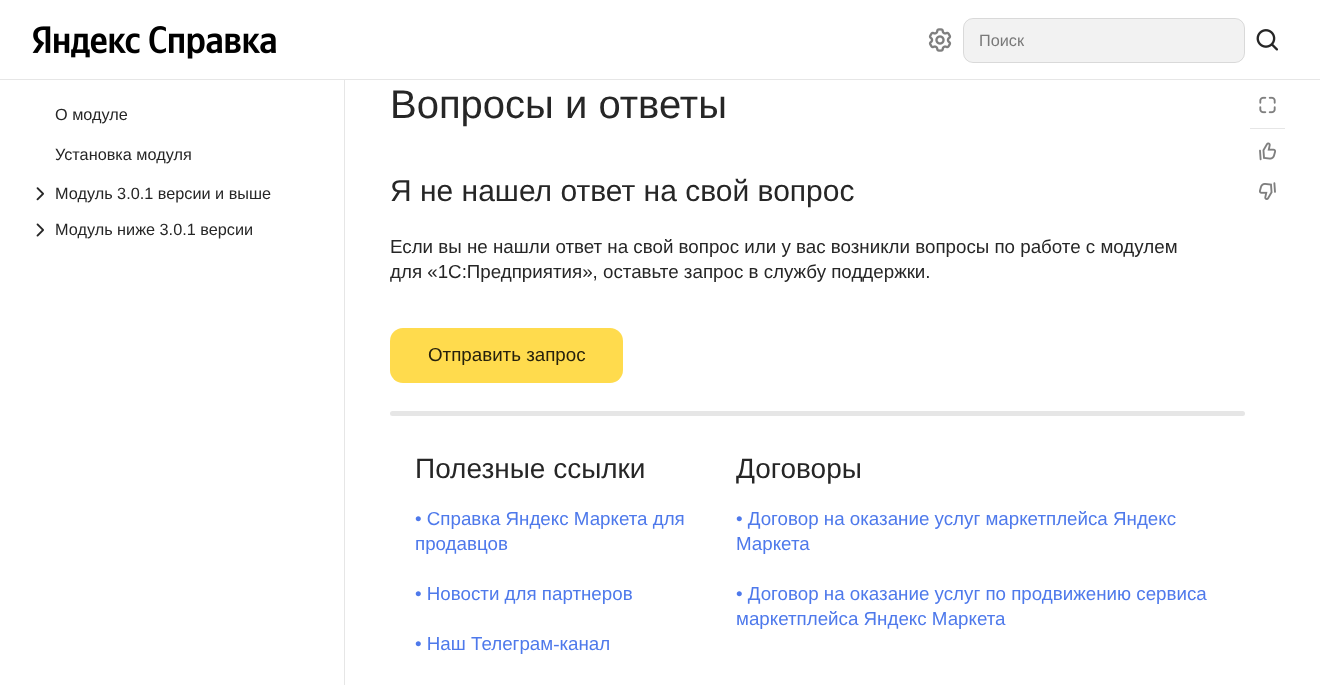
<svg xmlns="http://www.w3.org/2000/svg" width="1320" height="685">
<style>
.a{font:16.25px Liberation Sans;fill:#797979}
.b{font:16.25px Liberation Sans;fill:#262626}
.c{font:40px Liberation Sans;fill:#262626}
.d{font:30px Liberation Sans;fill:#262626}
.e{font:18.75px Liberation Sans;fill:#262626}
.f{font:18.75px Liberation Sans;fill:#26210c}
.g{font:28px Liberation Sans;fill:#262626}
.h{font:18.75px Liberation Sans;fill:#4e79eb}
</style>
<rect width="100%" height="100%" fill="#fff"/>
<path fill="#e6e6e6" d="M0 79h1320v1H0z"/>
<image href="1.png" x="32" y="26" width="244" height="33"/>
<image href="2.png" x="928" y="28" width="24" height="24"/>
<rect fill="#f2f2f2" x="963" y="18" width="282" height="45" rx="10"/>
<rect fill="none" stroke="#0000001a" x="963.5" y="18.5" width="281" height="44" rx="9.5"/>
<image href="3.png" x="1256" y="29" width="22" height="22"/>
<path fill="#e6e6e6" d="M344 80h1v605H344z"/>
<image href="4.png" x="36" y="187" width="8" height="14"/>
<image href="5.png" x="36" y="223" width="8" height="14"/>
<rect fill="#ffdb4d" x="390" y="328" width="233" height="55" rx="13"/>
<rect fill="#e6e6e6" x="390" y="411" width="855" height="5" rx="2.5"/>
<image href="6.png" x="1259" y="96" width="17" height="18"/>
<path fill="#e6e6e6" d="M1250 128h35v1H1250z"/>
<image href="7.png" x="1259" y="142" width="17" height="19"/>
<image href="8.png" x="1259" y="182" width="17" height="18"/>
<text class="a" x="979" y="46">Поиск</text>
<text class="b" x="55" y="120">О модуле</text>
<text class="b" x="55" y="160">Установка модуля</text>
<text class="b" x="55" y="199">Модуль 3.0.1 версии и выше</text>
<text class="b" x="55" y="235">Модуль ниже 3.0.1 версии</text>
<text class="c" x="390" y="118">Вопросы и ответы</text>
<text class="d" x="390" y="201">Я не нашел ответ на свой вопрос</text>
<text class="e" x="390" y="253">Если вы не нашли ответ на свой вопрос или у вас возникли вопросы по работе с модулем</text>
<text class="e" x="390" y="278">для «1С:Предприятия», оставьте запрос в службу поддержки.</text>
<text class="f" x="428" y="361">Отправить запрос</text>
<text class="g" x="415" y="478">Полезные ссылки</text>
<text class="g" x="736" y="478">Договоры</text>
<text class="h" x="415" y="525">• Справка Яндекс Маркета для</text>
<text class="h" x="415" y="550">продавцов</text>
<text class="h" x="736" y="525">• Договор на оказание услуг маркетплейса Яндекс</text>
<text class="h" x="736" y="550">Маркета</text>
<text class="h" x="415" y="600">• Новости для партнеров</text>
<text class="h" x="736" y="600">• Договор на оказание услуг по продвижению сервиса</text>
<text class="h" x="736" y="625">маркетплейса Яндекс Маркета</text>
<text class="h" x="415" y="650">• Наш Телеграм‑канал</text>
</svg>
